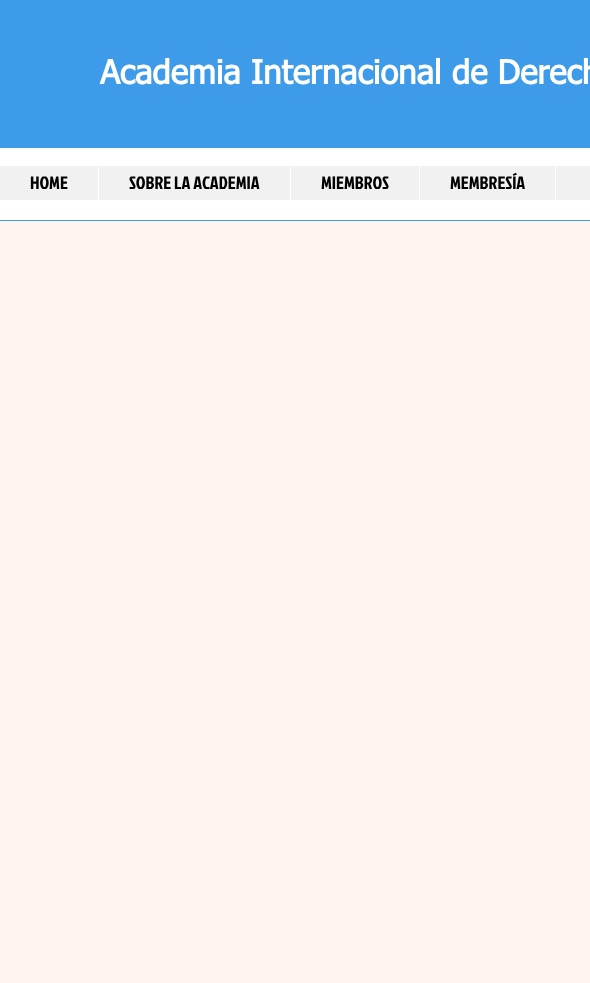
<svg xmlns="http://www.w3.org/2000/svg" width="590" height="983">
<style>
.a{font:bold 33px tahoma;fill:#fff}
.b{font:18px Jockey One;fill:#000}
</style>
<rect width="100%" height="100%" fill="#fff5f0"/>
<path fill="#3d9be9" d="M0 0h590v221H0z"/>
<path fill="#fff" d="M0 148h590v72H0z"/>
<path fill="#f1f1f1" d="M0 166h590v34H0z"/>
<path fill="#fff" d="M98 166h1v34H98z"/>
<path fill="#fff" d="M290 166h1v34H290z"/>
<path fill="#fff" d="M419 166h1v34H419z"/>
<path fill="#fff" d="M555 166h1v34H555z"/>
<text class="a" x="100" y="84">Academia Internacional de Derech</text>
<text class="b" x="30" y="189">HOME</text>
<text class="b" x="129" y="189">SOBRE LA ACADEMIA</text>
<text class="b" x="321" y="189">MIEMBROS</text>
<text class="b" x="450" y="189">MEMBRESÍA</text>
</svg>
